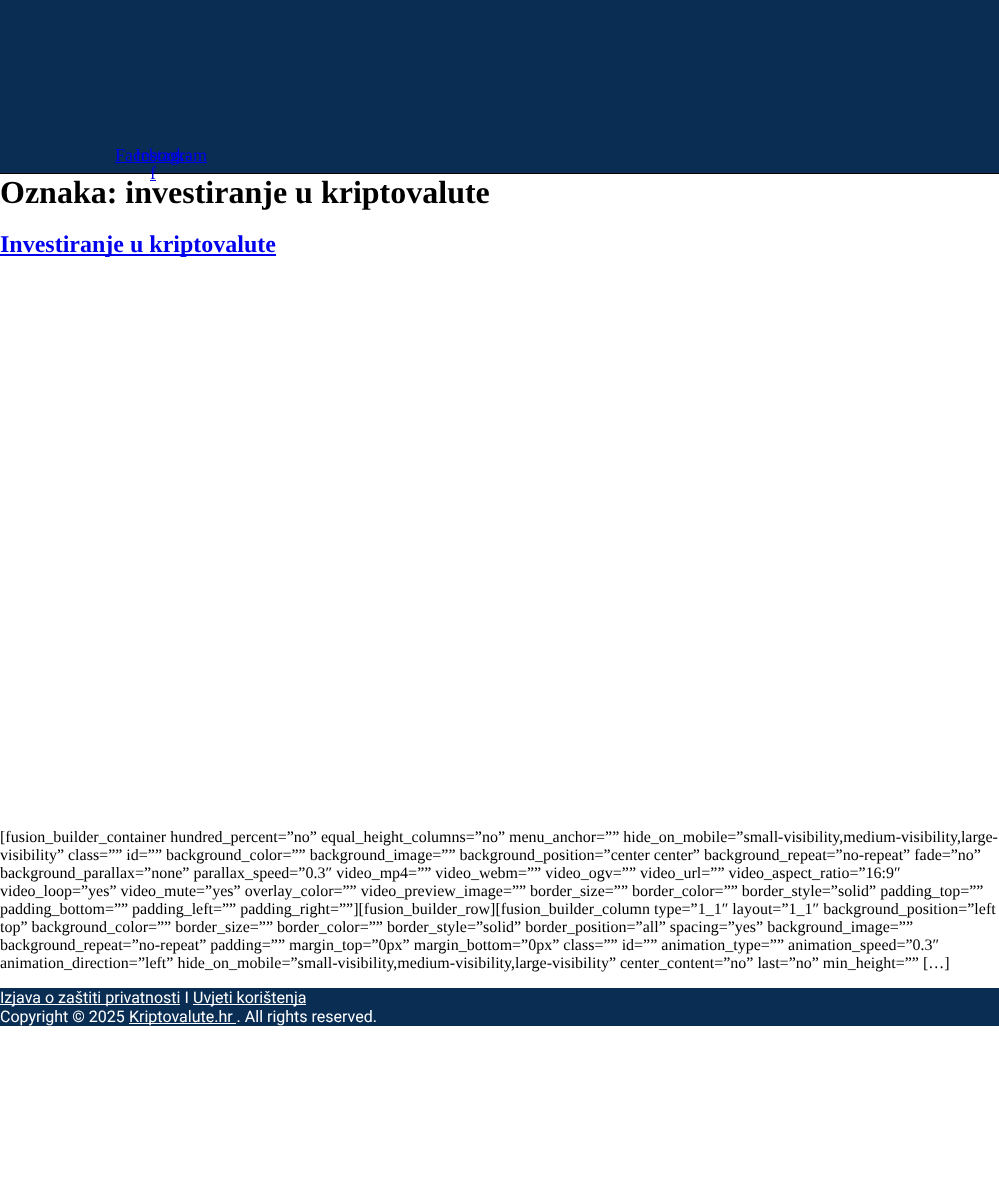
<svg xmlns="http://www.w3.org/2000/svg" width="999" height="1189">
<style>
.a{font:18px Liberation Serif;fill:#00e}
.b{font:bold 32px Liberation Serif;fill:#000}
.c{font:bold 24px Liberation Serif;fill:#00e}
.d{font:16px Liberation Serif;fill:#000}
.e{font:16px Roboto;fill:#fff}
</style>
<rect width="100%" height="100%" fill="#fff"/>
<path fill="#092d53" d="M0 0h999v173H0z"/>
<path fill="#000" d="M0 173h999v1H0z"/>
<path fill="#00e" d="M115 162h92v1H115z"/>
<path fill="#00e" d="M150 180h6v1H150z"/>
<path fill="#00e" d="M0 254h276v2H0z"/>
<path fill="#092d53" d="M0 988h999v38H0z"/>
<path fill="#fff" d="M0 1004h180v1H0z"/>
<path fill="#fff" d="M193 1004h113v1H193z"/>
<path fill="#fff" d="M129 1023h103v1H129z"/>
<path fill="#fff" d="M232 1023h4v1H232z"/>
<text class="a" x="115" y="161">Facebook-</text>
<text class="a" x="150" y="179">f</text>
<text class="a" x="135" y="161">Instagram</text>
<text class="b" x="0" y="203">Oznaka: investiranje u kriptovalute</text>
<text class="c" x="0" y="252">Investiranje u kriptovalute</text>
<text class="d" x="0" y="842">[fusion_builder_container hundred_percent=”no” equal_height_columns=”no” menu_anchor=”” hide_on_mobile=”small-visibility,medium-visibility,large-</text>
<text class="d" x="0" y="860">visibility” class=”” id=”” background_color=”” background_image=”” background_position=”center center” background_repeat=”no-repeat” fade=”no”</text>
<text class="d" x="0" y="878">background_parallax=”none” parallax_speed=”0.3″ video_mp4=”” video_webm=”” video_ogv=”” video_url=”” video_aspect_ratio=”16:9″</text>
<text class="d" x="0" y="896">video_loop=”yes” video_mute=”yes” overlay_color=”” video_preview_image=”” border_size=”” border_color=”” border_style=”solid” padding_top=””</text>
<text class="d" x="0" y="914">padding_bottom=”” padding_left=”” padding_right=””][fusion_builder_row][fusion_builder_column type=”1_1″ layout=”1_1″ background_position=”left</text>
<text class="d" x="0" y="932">top” background_color=”” border_size=”” border_color=”” border_style=”solid” border_position=”all” spacing=”yes” background_image=””</text>
<text class="d" x="0" y="950">background_repeat=”no-repeat” padding=”” margin_top=”0px” margin_bottom=”0px” class=”” id=”” animation_type=”” animation_speed=”0.3″</text>
<text class="d" x="0" y="968">animation_direction=”left” hide_on_mobile=”small-visibility,medium-visibility,large-visibility” center_content=”no” last=”no” min_height=”” […]</text>
<text class="e" x="0" y="1003">Izjava o zaštiti privatnosti I</text>
<text class="e" x="193" y="1003">Uvjeti korištenja</text>
<text class="e" x="0" y="1022">Copyright © 2025</text>
<text class="e" x="129" y="1022">Kriptovalute.hr . All rights reserved.</text>
</svg>
